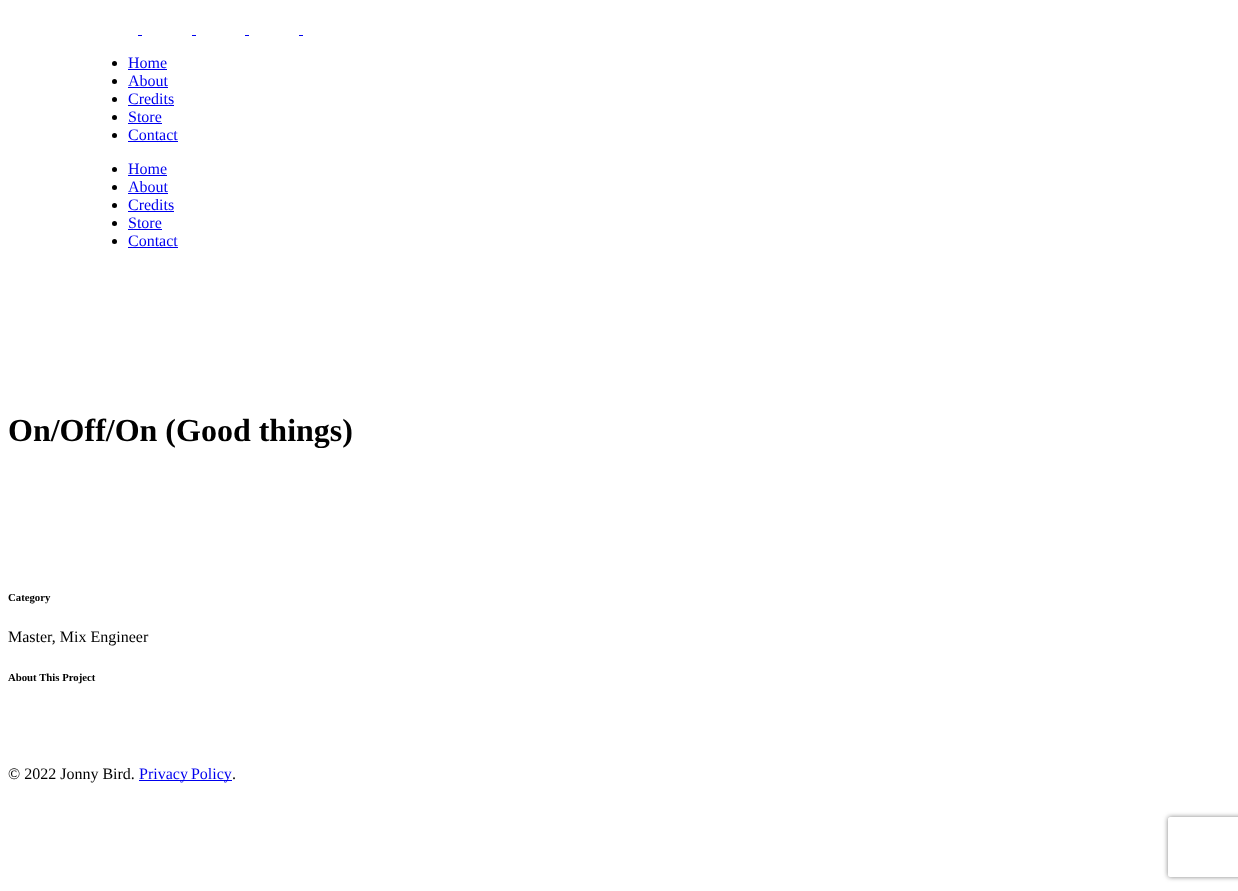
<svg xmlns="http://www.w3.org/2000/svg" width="1238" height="891">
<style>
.a{font:16px Liberation Serif;fill:#00e}
.b{font:bold 32px Liberation Serif;fill:#000}
.c{font:bold 10.75px Liberation Serif;fill:#000}
.d{font:16px Liberation Serif;fill:#000}
</style>
<defs>
<clipPath id="clip1"><path d="M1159 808h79v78h-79zm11 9h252c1 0 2 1 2 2v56c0 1-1 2-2 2h-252c-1 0-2-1-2-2v-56c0-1 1-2 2-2z" clip-rule="evenodd"/></clipPath>
</defs>
<rect width="100%" height="100%" fill="#fff"/>
<path fill="#00e" d="M138 35h4v1H138z"/>
<path fill="#00e" d="M192 35h4v1H192z"/>
<path fill="#00e" d="M245 35h4v1H245z"/>
<path fill="#00e" d="M299 35h4v1H299z"/>
<circle fill="#000" cx="114.5" cy="63.5" r="2.5"/>
<path fill="#00e" d="M128 69h39v1H128z"/>
<circle fill="#000" cx="114.5" cy="81.5" r="2.5"/>
<path fill="#00e" d="M128 87h40v1H128z"/>
<circle fill="#000" cx="114.5" cy="99.5" r="2.5"/>
<path fill="#00e" d="M128 105h46v1H128z"/>
<circle fill="#000" cx="114.5" cy="117.5" r="2.5"/>
<path fill="#00e" d="M128 123h34v1H128z"/>
<circle fill="#000" cx="114.5" cy="135.5" r="2.5"/>
<path fill="#00e" d="M128 141h50v1H128z"/>
<circle fill="#000" cx="114.5" cy="169.5" r="2.5"/>
<path fill="#00e" d="M128 175h39v1H128z"/>
<circle fill="#000" cx="114.5" cy="187.5" r="2.5"/>
<path fill="#00e" d="M128 193h40v1H128z"/>
<circle fill="#000" cx="114.5" cy="205.5" r="2.5"/>
<path fill="#00e" d="M128 211h46v1H128z"/>
<circle fill="#000" cx="114.5" cy="223.5" r="2.5"/>
<path fill="#00e" d="M128 229h34v1H128z"/>
<circle fill="#000" cx="114.5" cy="241.5" r="2.5"/>
<path fill="#00e" d="M128 247h50v1H128z"/>
<path fill="#00e" d="M139 780h93v1H139z"/>
<g clip-path="url(#clip1)">
<rect fill="#808080" filter="blur(2.5px)" x="1168" y="817" width="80" height="60" rx="2"/>
</g>
<text class="a" x="128" y="68">Home</text>
<text class="a" x="128" y="86">About</text>
<text class="a" x="128" y="104">Credits</text>
<text class="a" x="128" y="122">Store</text>
<text class="a" x="128" y="140">Contact</text>
<text class="a" x="128" y="174">Home</text>
<text class="a" x="128" y="192">About</text>
<text class="a" x="128" y="210">Credits</text>
<text class="a" x="128" y="228">Store</text>
<text class="a" x="128" y="246">Contact</text>
<text class="b" x="8" y="441">On/Off/On (Good things)</text>
<text class="c" x="8" y="601">Category</text>
<text class="d" x="8" y="642">Master, Mix Engineer</text>
<text class="c" x="8" y="681">About This Project</text>
<text class="d" x="8" y="779">© 2022 Jonny Bird.</text>
<text class="a" x="139" y="779" word-spacing="-1">Privacy Policy</text>
<text class="d" x="232" y="779">.</text>
</svg>
